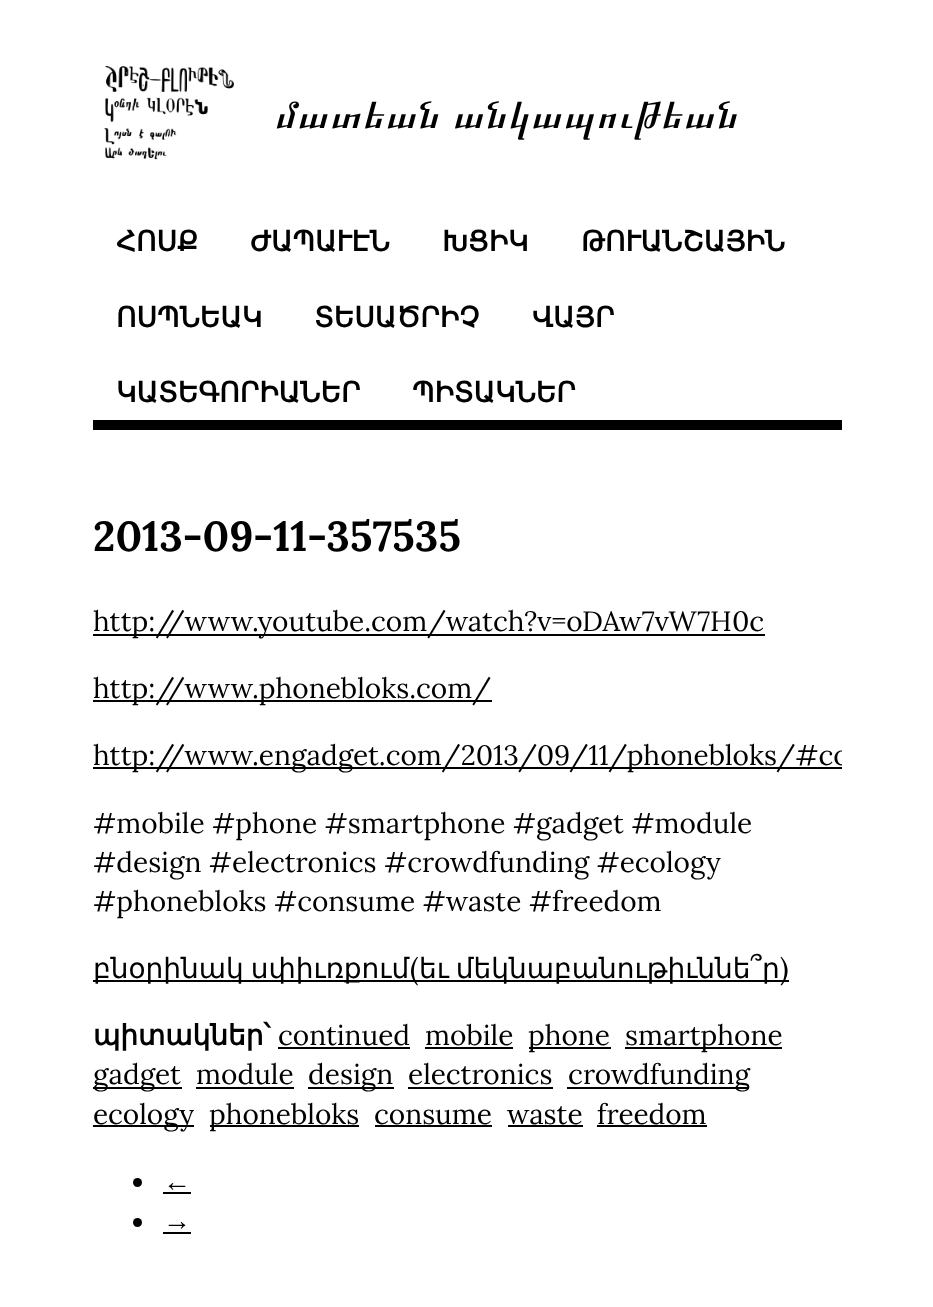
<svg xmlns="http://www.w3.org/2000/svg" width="933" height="1307">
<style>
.a{font:42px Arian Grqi;fill:#000}
.b{font:bold 28px DejaVu Sans;fill:#000}
.c{font:bold 42px Lora;fill:#000}
.d{font:28px Lora;fill:#000}
.e{font:28px DejaVu Sans;fill:#000}
.f{font:28px Liberation Serif;fill:#000}
</style>
<defs>
<clipPath id="clip1"><path d="M93 473h749v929H93z"/></clipPath>
</defs>
<rect width="100%" height="100%" fill="#fff"/>
<image href="1.png" x="104" y="66" width="130" height="94"/>
<path fill="#000" d="M93 420h749v10H93z"/>
<path fill="#000" d="M93 634h672v2H93z"/>
<path fill="#000" d="M93 700h399v2H93z"/>
<path fill="#000" d="M93 767h749v2H93z"/>
<path fill="#000" d="M93 980h696v2H93z"/>
<path fill="#000" d="M278 1047h132v2H278z"/>
<path fill="#000" d="M425 1047h88v2H425z"/>
<path fill="#000" d="M529 1047h82v2H529z"/>
<path fill="#000" d="M625 1047h157v2H625z"/>
<path fill="#000" d="M93 1087h89v2H93z"/>
<path fill="#000" d="M196 1087h98v2H196z"/>
<path fill="#000" d="M308 1087h86v2H308z"/>
<path fill="#000" d="M408 1087h145v2H408z"/>
<path fill="#000" d="M567 1087h182v2H567z"/>
<path fill="#000" d="M93 1125h101v2H93z"/>
<path fill="#000" d="M210 1125h149v2H210z"/>
<path fill="#000" d="M375 1125h117v2H375z"/>
<path fill="#000" d="M508 1125h75v2H508z"/>
<path fill="#000" d="M597 1125h110v2H597z"/>
<circle fill="#000" cx="137.5" cy="1182.5" r="4.5"/>
<path fill="#000" d="M163 1192h28v2H163z"/>
<circle fill="#000" cx="137.5" cy="1222.5" r="4.5"/>
<path fill="#000" d="M163 1232h28v2H163z"/>
<text class="a" x="275" y="128">մատեան անկապութեան</text>
<text class="b" x="116" y="251">ՀՈՍՔ</text>
<text class="b" x="250" y="251">ԺԱՊԱՒԷՆ</text>
<text class="b" x="442" y="251">ԽՑԻԿ</text>
<text class="b" x="581" y="251">ԹՈՒԱՆՇԱՅԻՆ</text>
<text class="b" x="116" y="327">ՈՍՊՆԵԱԿ</text>
<text class="b" x="314" y="327">ՏԵՍԱԾՐԻՉ</text>
<text class="b" x="532" y="327">ՎԱՅՐ</text>
<text class="b" x="116" y="402">ԿԱՏԵԳՈՐԻԱՆԵՐ</text>
<text class="b" x="412" y="402">ՊԻՏԱԿՆԵՐ</text>
<text class="c" x="93" y="551">2013-09-11-357535</text>
<text class="d" x="93" y="631">http://www.youtube.com/watch?v=oDAw7vW7H0c</text>
<text class="d" x="93" y="698">http://www.phonebloks.com/</text>
<g clip-path="url(#clip1)">
<text class="d" x="93" y="765">http://www.engadget.com/2013/09/11/phonebloks/#co</text>
</g>
<text class="d" x="93" y="833">#mobile #phone #smartphone #gadget #module</text>
<text class="d" x="93" y="872">#design #electronics #crowdfunding #ecology</text>
<text class="d" x="93" y="911">#phonebloks #consume #waste #freedom</text>
<text class="e" x="93" y="978" word-spacing="-2">բնօրինակ սփիւռքում</text>
<text class="d" x="410" y="978">(</text>
<text class="e" x="419" y="978" word-spacing="-2">եւ մեկնաբանութիւննե՞ր</text>
<text class="d" x="780" y="978">)</text>
<text class="b" x="93" y="1045">պիտակներ՝</text>
<text class="d" x="278" y="1045">continued</text>
<text class="d" x="425" y="1045">mobile</text>
<text class="d" x="528" y="1045">phone</text>
<text class="d" x="625" y="1045">smartphone</text>
<text class="d" x="93" y="1084">gadget</text>
<text class="d" x="196" y="1084">module</text>
<text class="d" x="308" y="1084">design</text>
<text class="d" x="408" y="1084">electronics</text>
<text class="d" x="568" y="1084">crowdfunding</text>
<text class="d" x="93" y="1124">ecology</text>
<text class="d" x="209" y="1124">phonebloks</text>
<text class="d" x="374" y="1124">consume</text>
<text class="d" x="507" y="1124">waste</text>
<text class="d" x="597" y="1124">freedom</text>
<text class="f" x="163" y="1191">←</text>
<text class="f" x="163" y="1230">→</text>
</svg>
